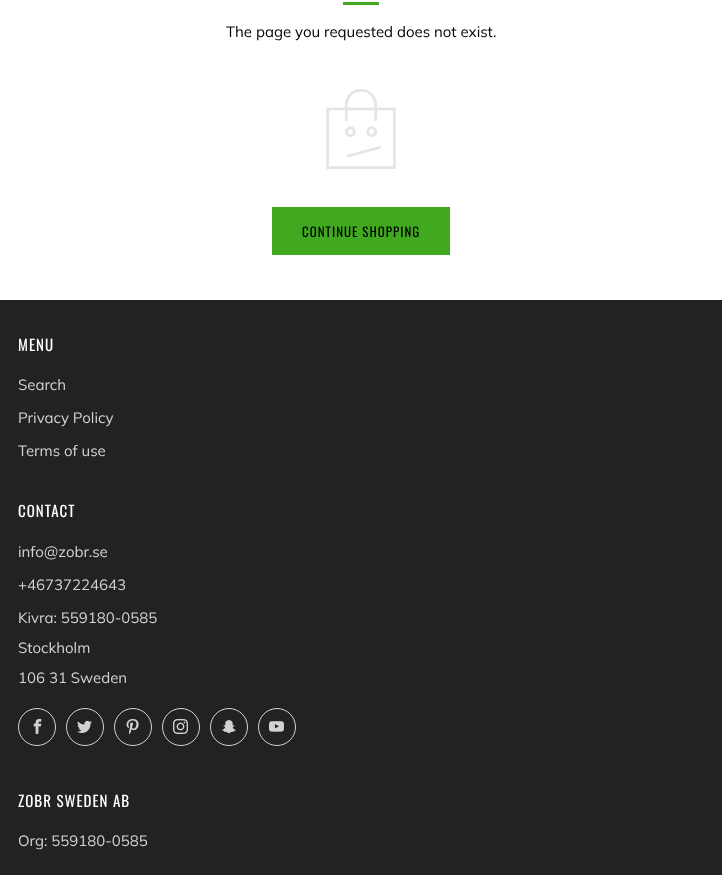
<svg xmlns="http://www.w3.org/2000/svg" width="722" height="875">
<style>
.a{font:15px Muli;fill:#000}
.b{font:13px Oswald;letter-spacing:1px;fill:#000}
.c{font:15px Oswald;letter-spacing:1px;fill:#fff}
.d{font:15px Muli;fill:#d3d3d3}
</style>
<rect width="100%" height="100%" fill="#fff"/>
<path fill="#40a91f" d="M343 2h36v3H343z"/>
<image href="1.png" x="326" y="89" width="70" height="80"/>
<path fill="#40a91f" d="M272 207h178v48H272z"/>
<path fill="#222" d="M0 300h722v575H0z"/>
<circle fill="none" stroke="#d3d3d3" cx="37" cy="727" r="18.5"/>
<image href="2.png" x="33" y="718" width="9" height="16"/>
<circle fill="none" stroke="#d3d3d3" cx="85" cy="727" r="18.5"/>
<image href="3.png" x="77" y="720" width="15" height="13"/>
<circle fill="none" stroke="#d3d3d3" cx="133" cy="727" r="18.5"/>
<image href="4.png" x="126" y="719" width="13" height="15"/>
<circle fill="none" stroke="#d3d3d3" cx="181" cy="727" r="18.5"/>
<image href="5.png" x="173" y="719" width="15" height="15"/>
<circle fill="none" stroke="#d3d3d3" cx="229" cy="727" r="18.5"/>
<image href="6.png" x="222" y="720" width="14" height="13"/>
<circle fill="none" stroke="#d3d3d3" cx="277" cy="727" r="18.5"/>
<image href="7.png" x="269" y="721" width="15" height="11"/>
<text class="a" x="226" y="37">The page you requested does not exist.</text>
<text class="b" x="302" y="237">CONTINUE SHOPPING</text>
<text class="c" x="18" y="351">MENU</text>
<text class="d" x="18" y="390">Search</text>
<text class="d" x="18" y="423">Privacy Policy</text>
<text class="d" x="18" y="456">Terms of use</text>
<text class="c" x="18" y="517">CONTACT</text>
<text class="d" x="18" y="557">info@zobr.se</text>
<text class="d" x="18" y="590">+46737224643</text>
<text class="d" x="18" y="623">Kivra: 559180-0585</text>
<text class="d" x="18" y="653">Stockholm</text>
<text class="d" x="18" y="683">106 31 Sweden</text>
<text class="c" x="18" y="807">ZOBR SWEDEN AB</text>
<text class="d" x="18" y="846">Org: 559180-0585</text>
</svg>
